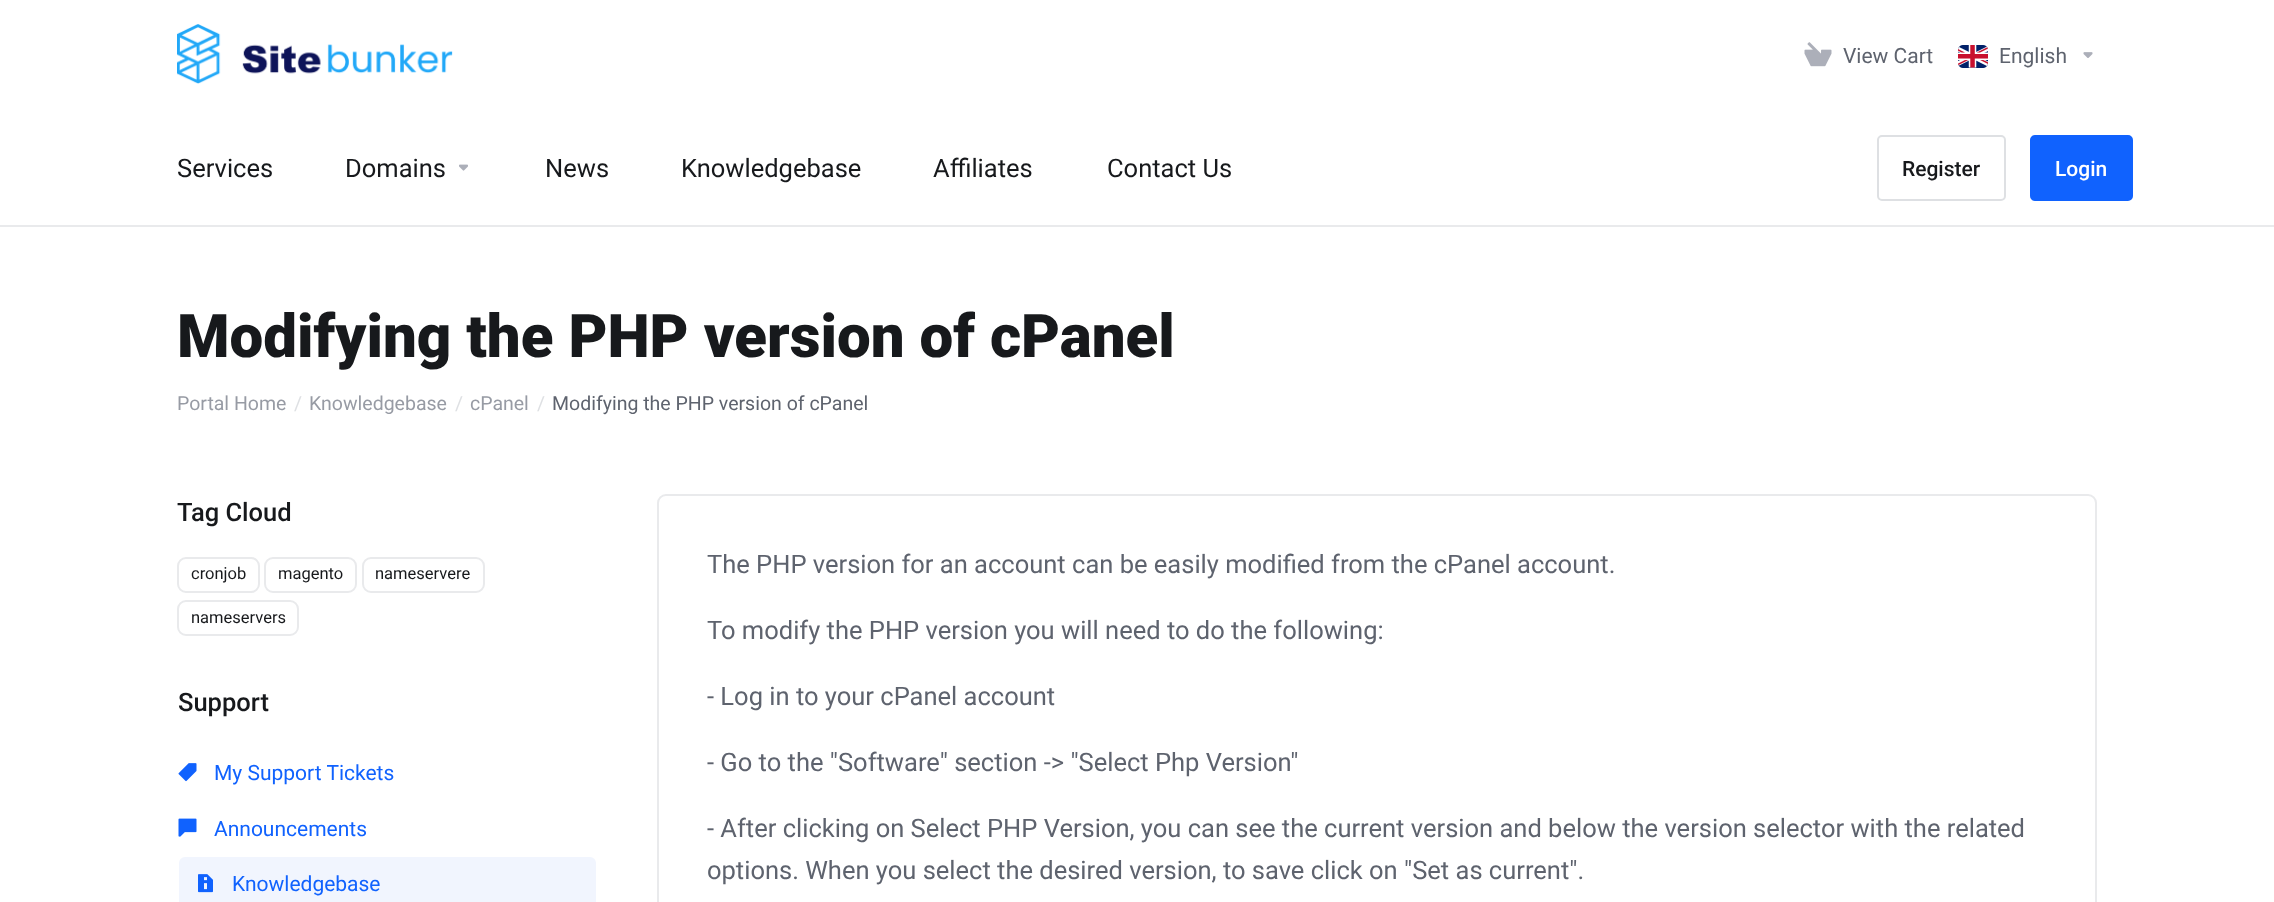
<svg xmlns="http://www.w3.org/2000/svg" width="2274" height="902">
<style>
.a{font:21px Roboto;fill:#5e636e}
.b{font:25.5px Roboto;fill:#17191c}
.c{font:500 21px Roboto;fill:#17191c}
.d{font:500 21px Roboto;fill:#fff}
.e{font:900 60px Roboto;fill:#17191c}
.f{font:19.5px Roboto;fill:#979ba4}
.g{font:19.5px Roboto;fill:#dee0e3}
.h{font:19.5px Roboto;fill:#5e636e}
.i{font:500 25.5px Roboto;fill:#17191c}
.j{font:16.5px Roboto;fill:#17191c}
.k{font:21px Roboto;fill:#1062fe}
.l{font:25.5px Roboto;fill:#5e636e}
</style>
<rect width="100%" height="100%" fill="#fff"/>
<path fill="#e9eaec" d="M0 225h2274v2H0z"/>
<image href="1.png" x="177" y="24" width="276" height="60"/>
<image href="2.png" x="1804" y="42" width="28" height="25"/>
<image href="3.png" x="1958" y="45" width="30" height="23"/>
<image href="4.png" x="2083" y="52" width="10" height="6"/>
<image href="5.png" x="459" y="164" width="9" height="7"/>
<rect fill="none" stroke="#dee0e3" stroke-width="2" x="1878" y="136" width="127" height="64" rx="4"/>
<rect fill="#1062fe" stroke="#1062fe" stroke-width="2" x="2031" y="136" width="101" height="64" rx="4"/>
<rect fill="none" stroke="#e9eaec" stroke-width="2" x="178" y="558" width="81" height="34" rx="8"/>
<rect fill="none" stroke="#e9eaec" stroke-width="2" x="265" y="558" width="91" height="34" rx="8"/>
<rect fill="none" stroke="#e9eaec" stroke-width="2" x="363" y="558" width="121" height="34" rx="8"/>
<rect fill="none" stroke="#e9eaec" stroke-width="2" x="178" y="601" width="120" height="34" rx="8"/>
<image href="6.png" x="178" y="763" width="19" height="19"/>
<image href="7.png" x="178" y="818" width="19" height="19"/>
<rect fill="#f1f5fe" x="179" y="857" width="417" height="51" rx="6"/>
<image href="8.png" x="198" y="874" width="15" height="19"/>
<rect fill="none" stroke="#e9eaec" stroke-width="2" x="658" y="495" width="1438" height="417" rx="8"/>
<text class="a" x="1843" y="63">View Cart</text>
<text class="a" x="1999" y="63">English</text>
<text class="b" x="177" y="177">Services</text>
<text class="b" x="345" y="177">Domains</text>
<text class="b" x="545" y="177">News</text>
<text class="b" x="681" y="177">Knowledgebase</text>
<text class="b" x="933" y="177">Affiliates</text>
<text class="b" x="1107" y="177">Contact Us</text>
<text class="c" x="1902" y="176">Register</text>
<text class="d" x="2055" y="176">Login</text>
<text class="e" x="177" y="357">Modifying the PHP version of cPanel</text>
<text class="f" x="177" y="410">Portal Home</text>
<text class="g" x="294" y="410">/</text>
<text class="f" x="309" y="410">Knowledgebase</text>
<text class="g" x="455" y="410">/</text>
<text class="f" x="470" y="410">cPanel</text>
<text class="g" x="537" y="410">/</text>
<text class="h" x="552" y="410">Modifying the PHP version of cPanel</text>
<text class="i" x="177" y="521">Tag Cloud</text>
<text class="j" x="191" y="579">cronjob</text>
<text class="j" x="278" y="579">magento</text>
<text class="j" x="375" y="579">nameservere</text>
<text class="j" x="191" y="623">nameservers</text>
<text class="i" x="178" y="711">Support</text>
<text class="k" x="214" y="780">My Support Tickets</text>
<text class="k" x="214" y="836">Announcements</text>
<text class="k" x="232" y="891">Knowledgebase</text>
<text class="l" x="707" y="573">The PHP version for an account can be easily modified from the cPanel account.</text>
<text class="l" x="707" y="639">To modify the PHP version you will need to do the following:</text>
<text class="l" x="707" y="705">- Log in to your cPanel account</text>
<text class="l" x="707" y="771">- Go to the "Software" section -&gt; "Select Php Version"</text>
<text class="l" x="707" y="837">- After clicking on Select PHP Version, you can see the current version and below the version selector with the related</text>
<text class="l" x="707" y="879">options. When you select the desired version, to save click on "Set as current".</text>
</svg>
